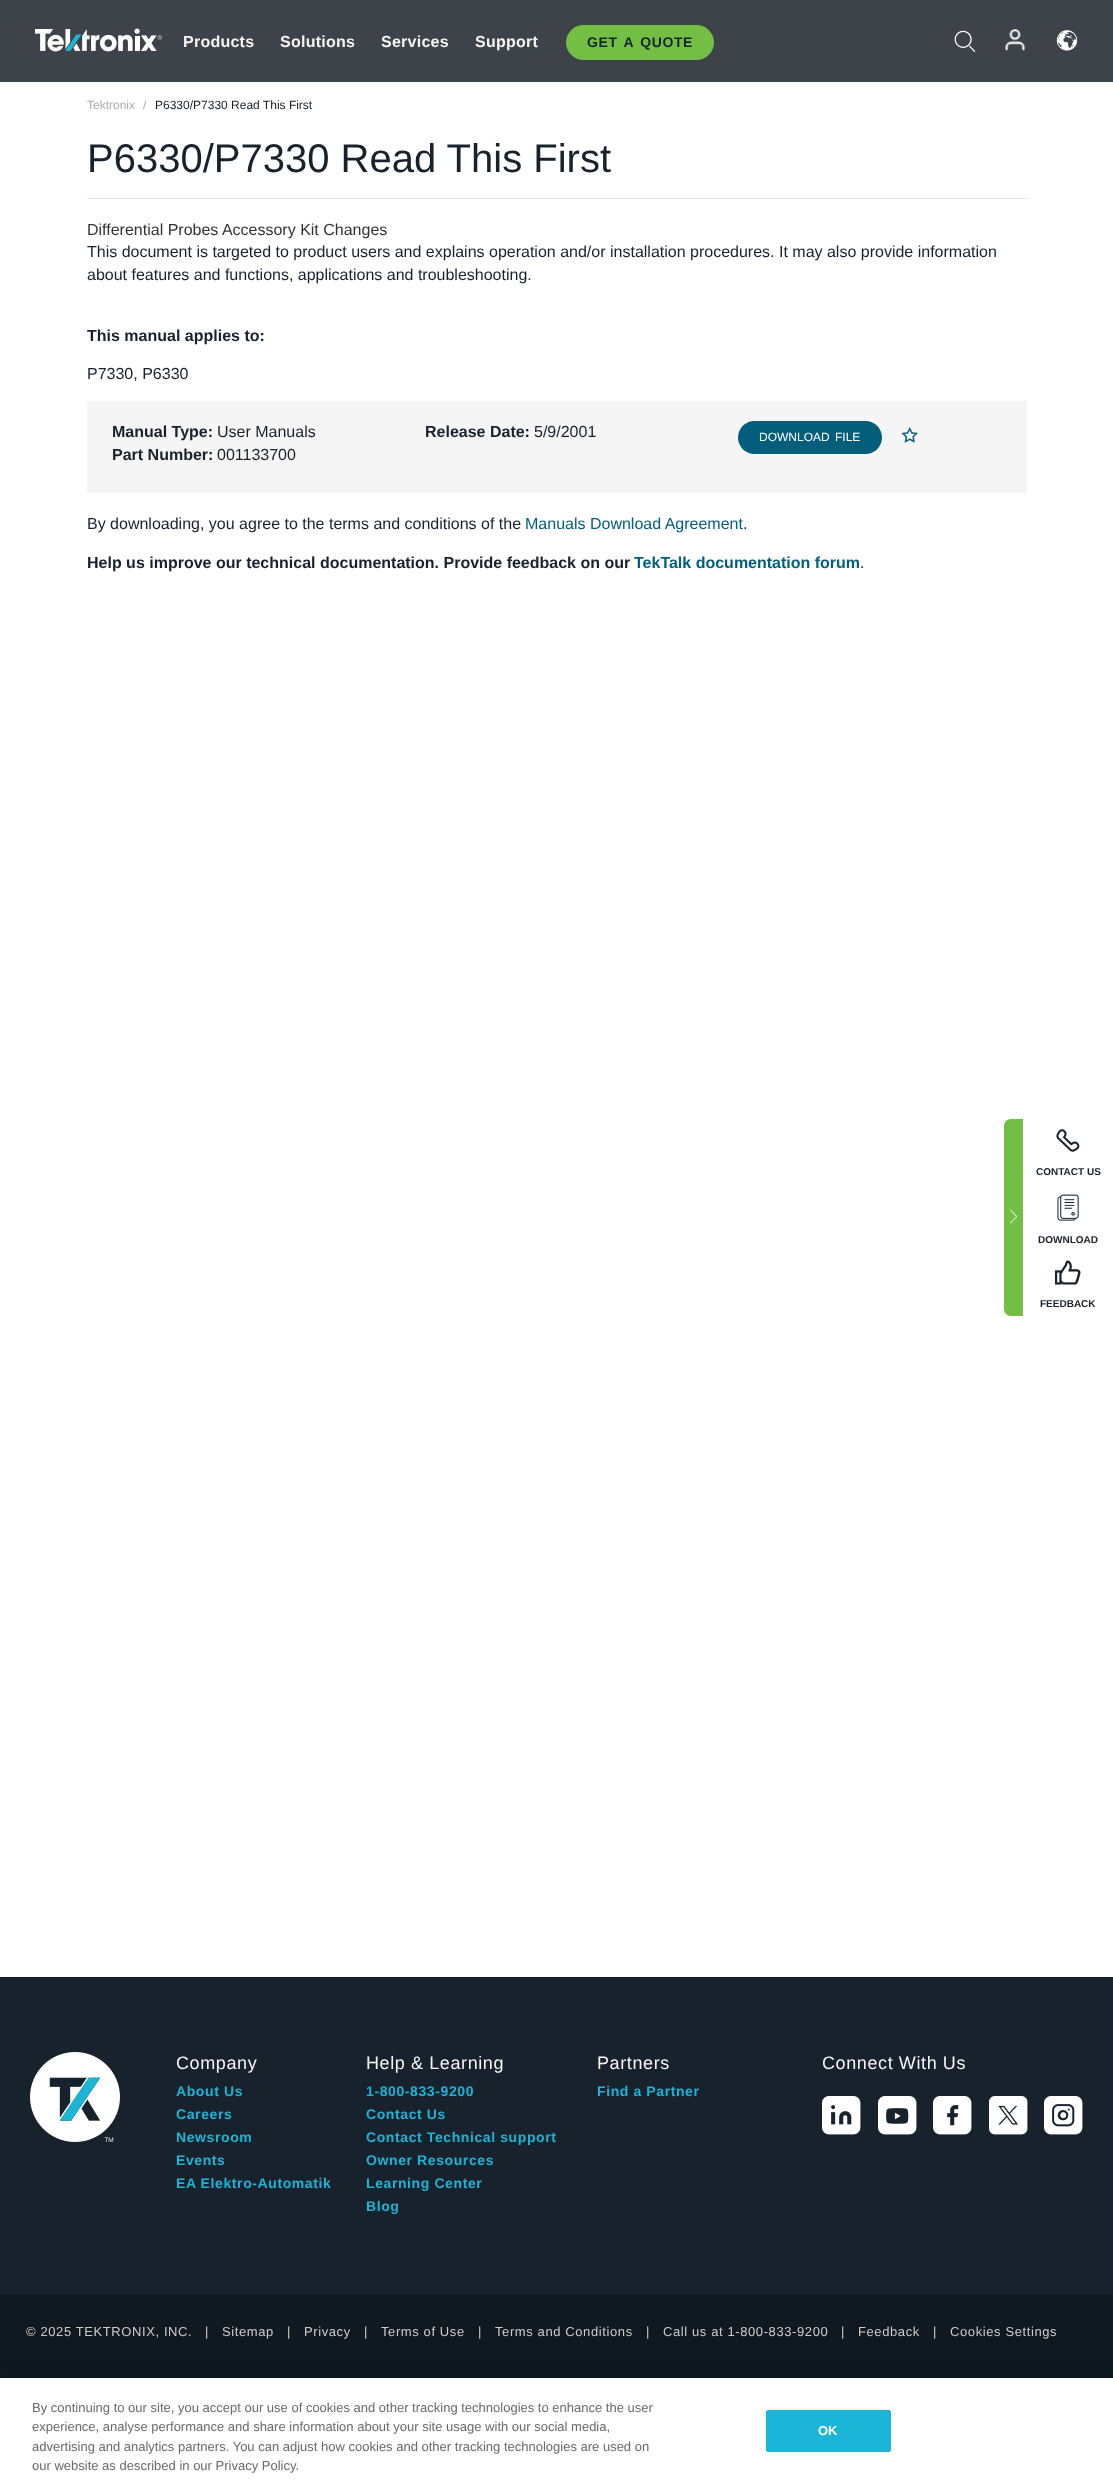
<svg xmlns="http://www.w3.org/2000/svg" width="1113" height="2486">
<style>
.a{font:bold 16px Liberation Sans;letter-spacing:0.25px;fill:#f5f5f5}
.b{font:bold 14px Liberation Sans;letter-spacing:0.6px;fill:#17222c}
.c{font:12px Liberation Sans;fill:#ababab}
.d{font:12px Liberation Sans;fill:#17222c}
.e{font:40px Liberation Sans;fill:#17222c}
.f{font:16px Liberation Sans;fill:#333}
.g{font:16px Liberation Sans;fill:#17222c}
.h{font:bold 16px Liberation Sans;fill:#17222c}
.i{font:12px Liberation Sans;fill:#fff}
.j{font:16px Liberation Sans;fill:#035e7c}
.k{font:bold 16px Liberation Sans;fill:#035e7c}
.l{font:bold 10px Liberation Sans;fill:#17222c}
.m{font:18px Liberation Sans;letter-spacing:0.6px;fill:#f5f5f5}
.n{font:bold 14px Liberation Sans;letter-spacing:0.6px;fill:#1cb5d8}
.o{font:13px Liberation Sans;letter-spacing:0.6px;fill:#ccc}
.p{font:13px Liberation Sans;fill:#696969}
.q{font:bold 13px Liberation Sans;fill:#fff}
</style>
<rect width="100%" height="100%" fill="#fff"/>
<path fill="#3e434a" d="M0 0h1113v82H0z"/>
<image href="1.png" x="35" y="28" width="127" height="24"/>
<rect fill="#73bf44" x="566" y="25" width="148" height="35" rx="17.5"/>
<image href="2.png" x="954" y="30" width="22" height="22"/>
<image href="3.png" x="1005" y="29" width="20" height="22"/>
<image href="4.png" x="1056" y="30" width="22" height="21"/>
<path fill="#e5e5e5" d="M87 198h940v1H87z"/>
<path fill="#f5f5f5" d="M87 401h940v92H87z"/>
<rect fill="#035e7c" x="738" y="421" width="144" height="33" rx="16.5"/>
<image href="5.png" x="901" y="427" width="17" height="16"/>
<path fill="#73bf44" d="M1011 1119h12v197h-12c-4 0-7-3-7-7v-183c0-4 3-7 7-7z"/>
<image href="6.png" x="1010" y="1209" width="7" height="15"/>
<image href="7.png" x="1056" y="1129" width="24" height="23"/>
<image href="8.png" x="1057" y="1194" width="22" height="27"/>
<image href="9.png" x="1055" y="1260" width="26" height="25"/>
<path fill="#17222c" d="M0 1977h1113v318H0z"/>
<image href="10.png" x="30" y="2052" width="90" height="90"/>
<image href="11.png" x="822" y="2096" width="39" height="39"/>
<image href="12.png" x="878" y="2096" width="39" height="39"/>
<image href="13.png" x="933" y="2096" width="39" height="39"/>
<image href="14.png" x="989" y="2096" width="39" height="39"/>
<image href="15.png" x="1044" y="2096" width="39" height="39"/>
<path fill="#101920" d="M0 2295h1113v83H0z"/>
<path fill="#00000033" filter="blur(9px)" d="M0 2378h1113v108H0z"/>
<path fill="#fff" d="M0 2378h1113v108H0z"/>
<rect fill="#1cb5d8" stroke="#1cb5d8" x="766.5" y="2410.5" width="124" height="41" rx="1.5"/>
<text class="a" x="183" y="47">Products</text>
<text class="a" x="280" y="47">Solutions</text>
<text class="a" x="381" y="47">Services</text>
<text class="a" x="475" y="47">Support</text>
<text class="b" x="587" y="47" word-spacing="2">GET A QUOTE</text>
<text class="c" x="87" y="109">Tektronix</text>
<text class="c" x="143" y="109">/</text>
<text class="d" x="155" y="109">P6330/P7330 Read This First</text>
<text class="e" x="87" y="172">P6330/P7330 Read This First</text>
<text class="f" x="87" y="235">Differential Probes Accessory Kit Changes</text>
<text class="g" x="87" y="257">This document is targeted to product users and explains operation and/or installation procedures. It may also provide information</text>
<text class="g" x="87" y="280">about features and functions, applications and troubleshooting.</text>
<text class="h" x="87" y="341">This manual applies to:</text>
<text class="g" x="87" y="379">P7330, P6330</text>
<text class="h" x="112" y="437">Manual Type:</text>
<text class="g" x="217" y="437">User Manuals</text>
<text class="h" x="112" y="460">Part Number:</text>
<text class="g" x="217" y="460">001133700</text>
<text class="h" x="425" y="437">Release Date:</text>
<text class="g" x="534" y="437">5/9/2001</text>
<text class="i" x="759" y="441" word-spacing="2">DOWNLOAD FILE</text>
<text class="g" x="87" y="529">By downloading, you agree to the terms and conditions of the</text>
<text class="j" x="525" y="529">Manuals Download Agreement</text>
<text class="g" x="743" y="529">.</text>
<text class="h" x="87" y="568">Help us improve our technical documentation. Provide feedback on our</text>
<text class="k" x="634" y="568">TekTalk documentation forum</text>
<text class="g" x="860" y="568">.</text>
<text class="l" x="1036" y="1175">CONTACT US</text>
<text class="l" x="1038" y="1243">DOWNLOAD</text>
<text class="l" x="1040" y="1307">FEEDBACK</text>
<text class="m" x="176" y="2069">Company</text>
<text class="n" x="176" y="2096">About Us</text>
<text class="n" x="176" y="2119">Careers</text>
<text class="n" x="176" y="2142">Newsroom</text>
<text class="n" x="176" y="2165">Events</text>
<text class="n" x="176" y="2188">EA Elektro-Automatik</text>
<text class="m" x="366" y="2069">Help &amp; Learning</text>
<text class="n" x="366" y="2096">1-800-833-9200</text>
<text class="n" x="366" y="2119">Contact Us</text>
<text class="n" x="366" y="2142">Contact Technical support</text>
<text class="n" x="366" y="2165">Owner Resources</text>
<text class="n" x="366" y="2188">Learning Center</text>
<text class="n" x="366" y="2211">Blog</text>
<text class="m" x="597" y="2069">Partners</text>
<text class="n" x="597" y="2096">Find a Partner</text>
<text class="m" x="822" y="2069">Connect With Us</text>
<text class="o" x="26" y="2336">© 2025 TEKTRONIX, INC.</text>
<text class="o" x="205" y="2336">|</text>
<text class="o" x="222" y="2336">Sitemap</text>
<text class="o" x="287" y="2336">|</text>
<text class="o" x="304" y="2336">Privacy</text>
<text class="o" x="364" y="2336">|</text>
<text class="o" x="381" y="2336">Terms of Use</text>
<text class="o" x="478" y="2336">|</text>
<text class="o" x="495" y="2336">Terms and Conditions</text>
<text class="o" x="646" y="2336">|</text>
<text class="o" x="663" y="2336">Call us at 1-800-833-9200</text>
<text class="o" x="841" y="2336">|</text>
<text class="o" x="858" y="2336">Feedback</text>
<text class="o" x="933" y="2336">|</text>
<text class="o" x="950" y="2336">Cookies Settings</text>
<text class="p" x="32" y="2412">By continuing to our site, you accept our use of cookies and other tracking technologies to enhance the user</text>
<text class="p" x="32" y="2431">experience, analyse performance and share information about your site usage with our social media,</text>
<text class="p" x="32" y="2451">advertising and analytics partners. You can adjust how cookies and other tracking technologies are used on</text>
<text class="p" x="32" y="2470">our website as described in our Privacy Policy.</text>
<text class="q" x="818" y="2435">OK</text>
</svg>
